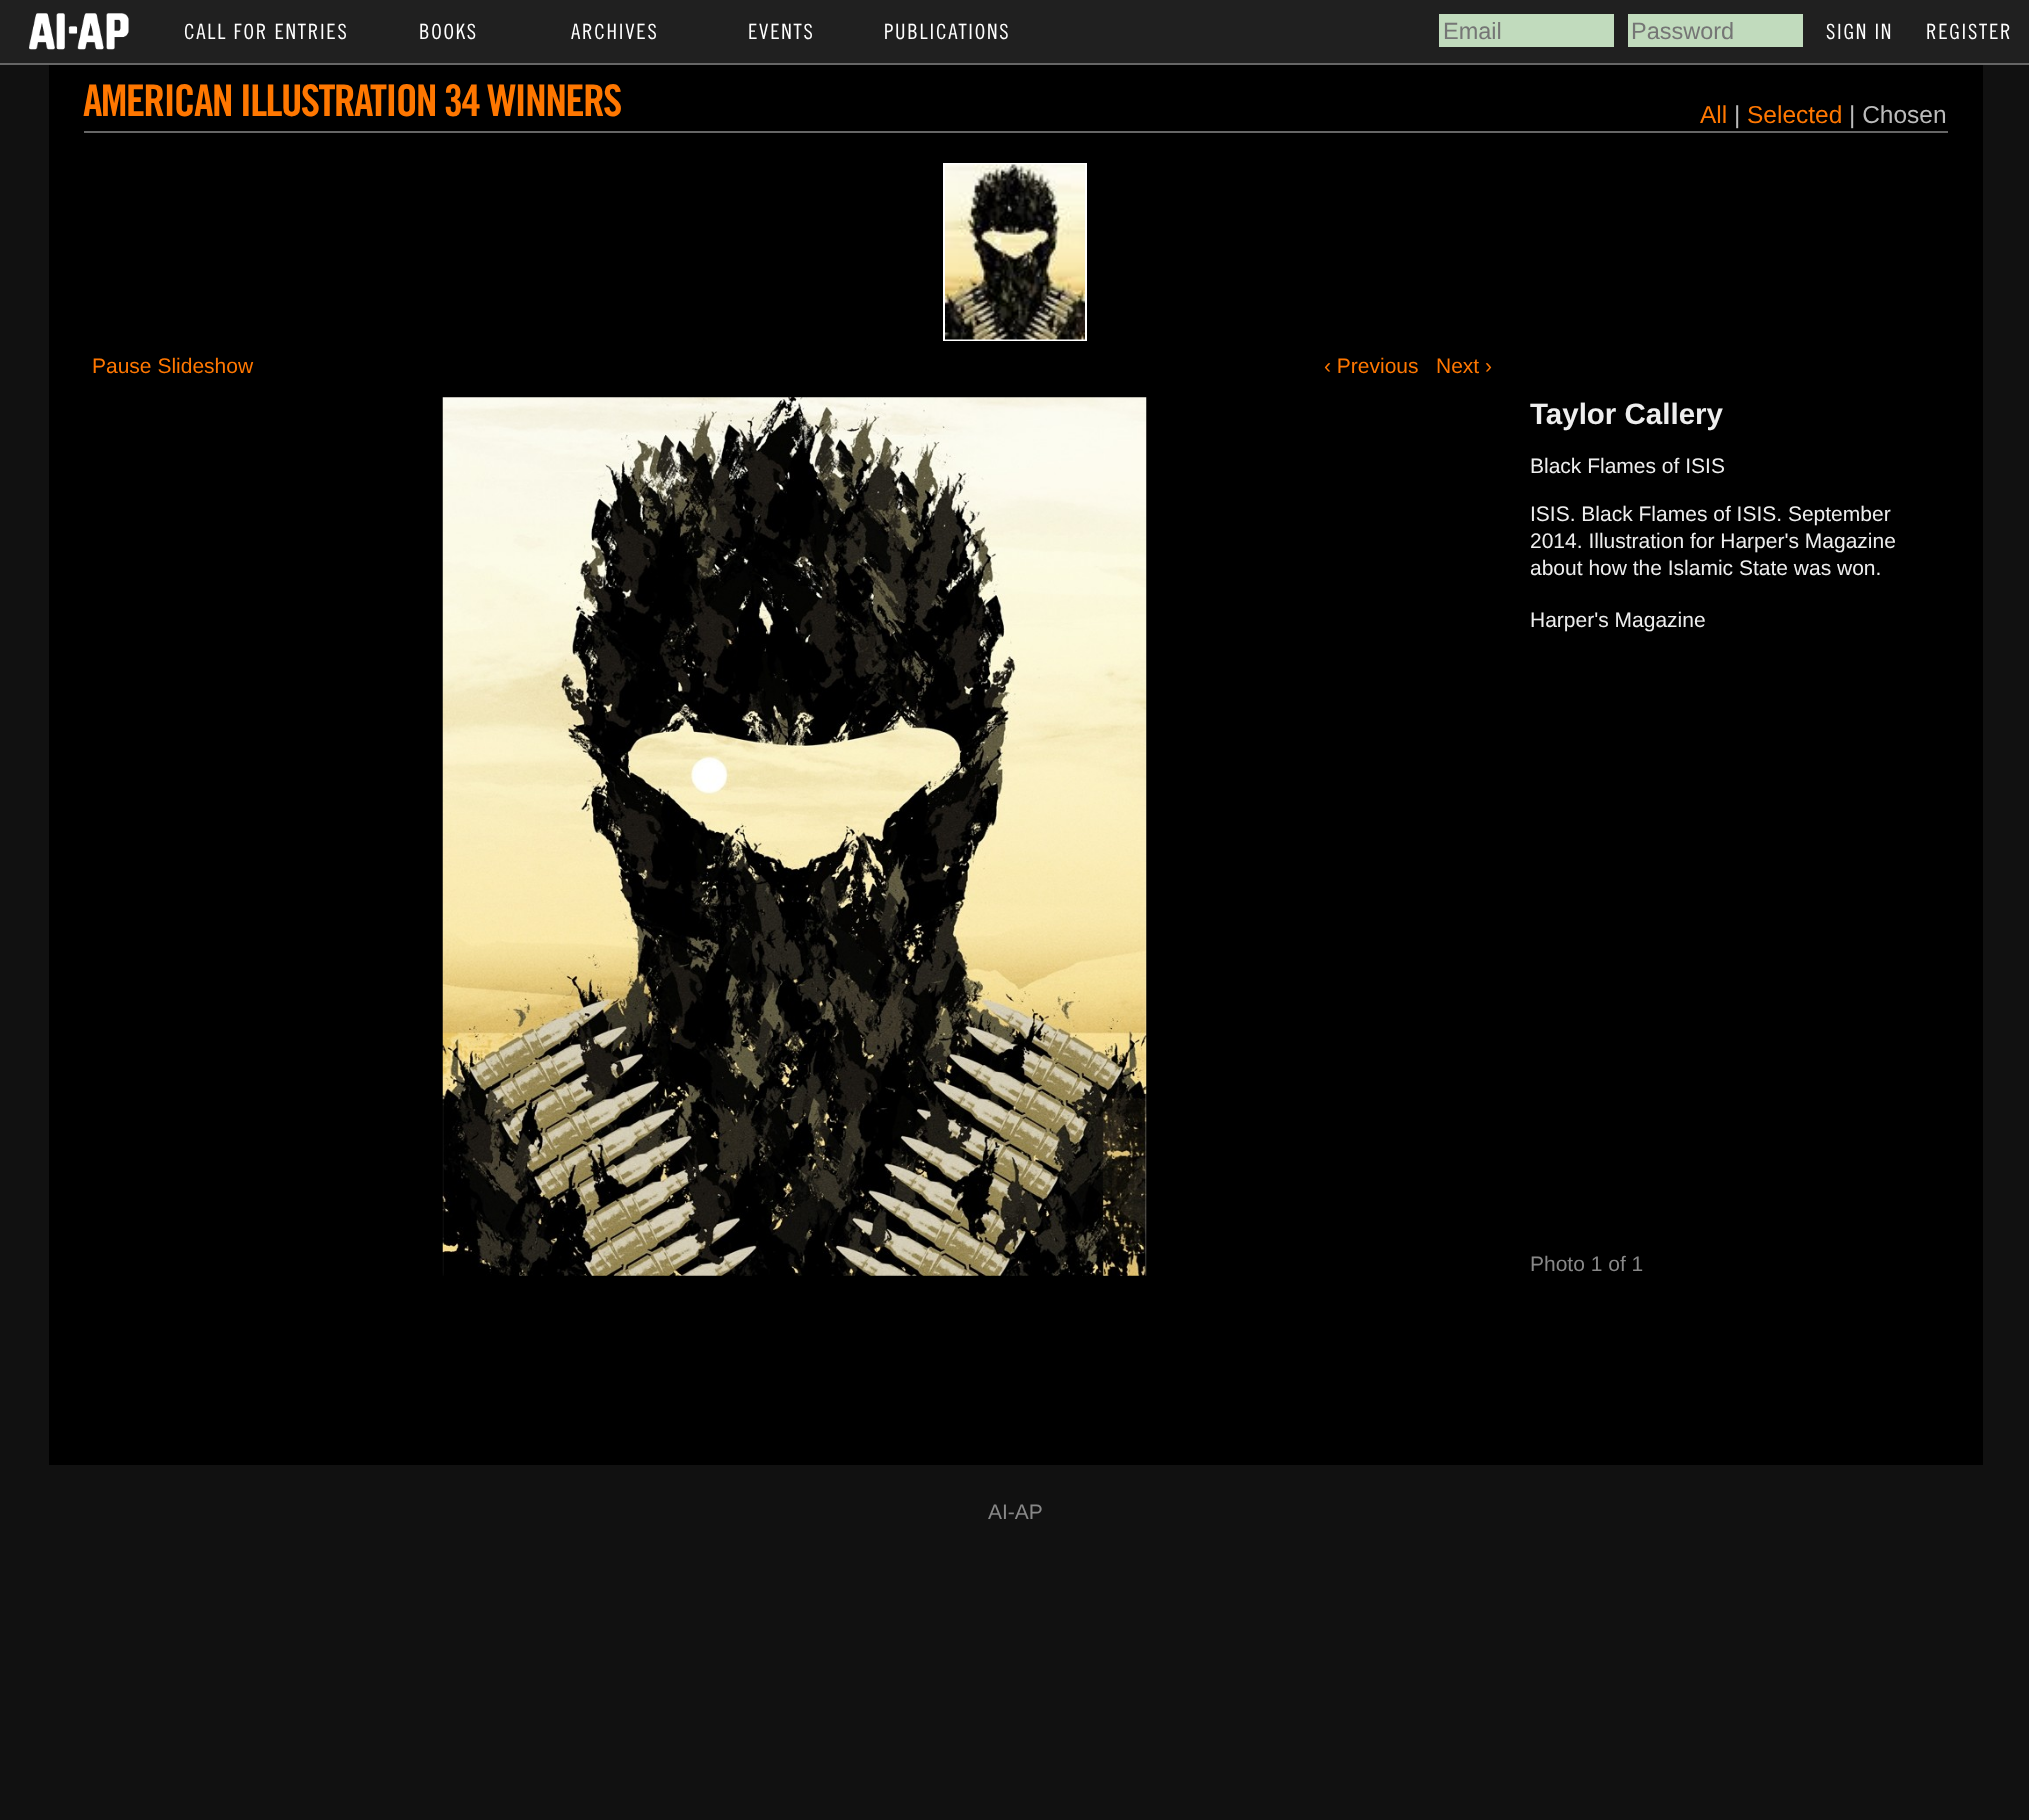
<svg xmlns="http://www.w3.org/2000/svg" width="2029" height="1820">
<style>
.a{font:21px 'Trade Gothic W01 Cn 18';letter-spacing:1.75px;fill:#fff}
.b{font:23.5px Liberation Sans;fill:#757575}
.c{font:bold 43.75px 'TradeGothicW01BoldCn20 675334';letter-spacing:-1.75px;fill:#f70}
.d{font:24.5px Liberation Sans;fill:#f70}
.e{font:24.5px Liberation Sans;fill:#bbb}
.f{font:21px Liberation Sans;fill:#f70}
.g{font:bold 29.5px Liberation Sans;fill:#eee}
.h{font:21px Liberation Sans;fill:#eee}
.i{font:21px Liberation Sans;fill:#888}
</style>
<rect width="100%" height="100%" fill="#111"/>
<path fill="#202020" d="M0 0h2029v63H0z"/>
<image href="1.png" x="29" y="13" width="100" height="37"/>
<path fill="#c1dbbd" d="M1439 14h175v33H1439z"/>
<path fill="#c1dbbd" d="M1628 14h175v33H1628z"/>
<path fill="#666" d="M0 63h2029v2H0z"/>
<path fill="#000" d="M49 65h1934v1400H49z"/>
<path fill="#666" d="M84 131h1864v2H84z"/>
<path fill="#fff" d="M943 163h144v178H943z"/>
<image href="2.png" x="945" y="164" width="140" height="176"/>
<image href="3.png" x="442" y="397" width="705" height="879"/>
<text class="a" x="184" y="39">CALL FOR ENTRIES</text>
<text class="a" x="419" y="39">BOOKS</text>
<text class="a" x="571" y="39">ARCHIVES</text>
<text class="a" x="748" y="39">EVENTS</text>
<text class="a" x="884" y="39">PUBLICATIONS</text>
<text class="b" x="1443" y="39">Email</text>
<text class="b" x="1631" y="39">Password</text>
<text class="a" x="1826" y="39">SIGN IN</text>
<text class="a" x="1926" y="39">REGISTER</text>
<text class="c" x="83" y="116">AMERICAN ILLUSTRATION 34 WINNERS</text>
<text class="d" x="1700" y="123">All</text>
<text class="e" x="1734" y="123">|</text>
<text class="d" x="1747" y="123">Selected</text>
<text class="e" x="1849" y="123">| Chosen</text>
<text class="f" x="92" y="373">Pause Slideshow</text>
<text class="f" x="1324" y="373">‹ Previous</text>
<text class="f" x="1436" y="373">Next ›</text>
<text class="g" x="1530" y="424">Taylor Callery</text>
<text class="h" x="1530" y="473">Black Flames of ISIS</text>
<text class="h" x="1530" y="521">ISIS. Black Flames of ISIS. September</text>
<text class="h" x="1530" y="548">2014. Illustration for Harper's Magazine</text>
<text class="h" x="1530" y="575">about how the Islamic State was won.</text>
<text class="h" x="1530" y="627">Harper's Magazine</text>
<text class="i" x="1530" y="1271">Photo 1 of 1</text>
<text class="i" x="988" y="1519">AI-AP</text>
</svg>
